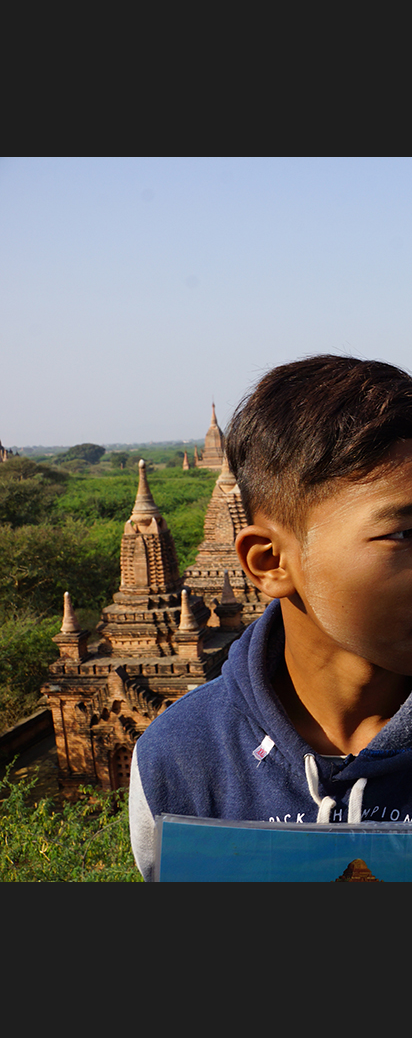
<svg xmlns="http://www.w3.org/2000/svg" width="412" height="1038">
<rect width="100%" height="100%" fill="#1e1e1e"/>
<image href="1.png" x="0" y="157" width="412" height="725"/>
</svg>
